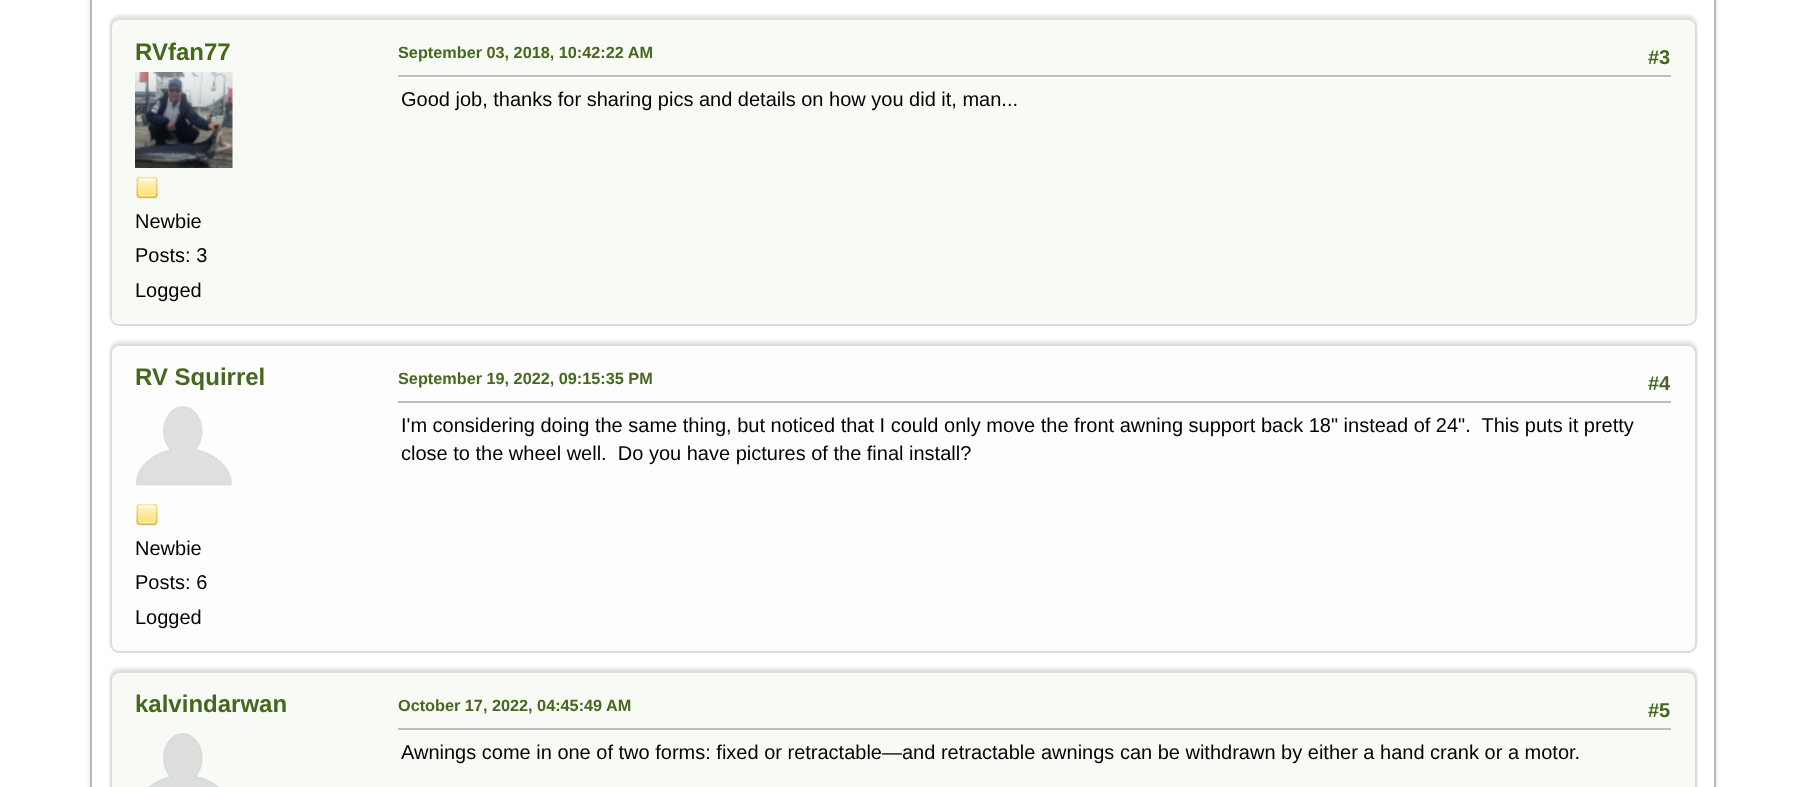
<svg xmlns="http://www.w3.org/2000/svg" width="1806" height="787">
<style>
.a{font:bold 24px Liberation Sans;fill:#46671e}
.b{font:20px Liberation Sans;fill:#000}
.c{font:bold 16.25px Liberation Sans;fill:#46671e}
.d{font:bold 20px Liberation Sans;fill:#46671e}
</style>
<defs>
<clipPath id="clip1"><path d="M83 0h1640v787h-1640zm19-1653h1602c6.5 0 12 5.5 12 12v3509c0 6.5-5.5 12-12 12h-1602c-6.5 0-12-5.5-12-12v-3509c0-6.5 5.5-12 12-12z" clip-rule="evenodd"/></clipPath>
</defs>
<rect width="100%" height="100%" fill="#fff"/>
<g clip-path="url(#clip1)">
<rect fill="#00000024" filter="blur(2px)" x="90" y="-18" width="1626" height="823" rx="12"/>
</g>
<path fill="none" stroke="#b8b8b8" stroke-width="2" d="M91 -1h1624v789H91z"/>
<rect fill="#0000001a" filter="blur(1.5px)" x="110" y="15" width="1587" height="308" rx="9"/>
<rect fill="#f8faf5" stroke="#ddd" stroke-width="2" x="111" y="19" width="1585" height="306" rx="8"/>
<image href="1.png" x="135" y="72" width="98" height="96"/>
<image href="2.png" x="136" y="176" width="22" height="23"/>
<path fill="#fff" d="M398 77h1273v2H398z"/>
<path fill="#bfbfbf" d="M398 75h1273v2H398z"/>
<rect fill="#0000001a" filter="blur(1.5px)" x="110" y="341" width="1587" height="309" rx="9"/>
<rect fill="#fdfdfd" stroke="#ddd" stroke-width="2" x="111" y="345" width="1585" height="307" rx="8"/>
<image href="3.png" x="136" y="406" width="96" height="80"/>
<image href="4.png" x="136" y="503" width="22" height="23"/>
<path fill="#bfbfbf" d="M398 401h1273v2H398z"/>
<rect fill="#0000001a" filter="blur(1.5px)" x="110" y="668" width="1587" height="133" rx="9"/>
<rect fill="#f8faf5" stroke="#ddd" stroke-width="2" x="111" y="672" width="1585" height="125" rx="8"/>
<image href="5.png" x="148" y="733" width="71" height="54"/>
<path fill="#fff" d="M398 730h1273v1H398z"/>
<path fill="#bfbfbf" d="M398 728h1273v2H398z"/>
<text class="a" x="135" y="60">RVfan77</text>
<text class="b" x="135" y="228">Newbie</text>
<text class="b" x="135" y="262">Posts: 3</text>
<text class="b" x="135" y="297">Logged</text>
<text class="c" x="398" y="58">September 03, 2018, 10:42:22 AM</text>
<text class="d" x="1648" y="64">#3</text>
<text class="b" x="401" y="106">Good job, thanks for sharing pics and details on how you did it, man...</text>
<text class="a" x="135" y="385">RV Squirrel</text>
<text class="b" x="135" y="555">Newbie</text>
<text class="b" x="135" y="589">Posts: 6</text>
<text class="b" x="135" y="624">Logged</text>
<text class="c" x="398" y="384">September 19, 2022, 09:15:35 PM</text>
<text class="d" x="1648" y="390">#4</text>
<text class="b" xml:space="preserve" x="401" y="432">I'm considering doing the same thing, but noticed that I could only move the front awning support back 18" instead of 24".  This puts it pretty</text>
<text class="b" xml:space="preserve" x="401" y="460">close to the wheel well.  Do you have pictures of the final install?</text>
<text class="a" x="135" y="712">kalvindarwan</text>
<text class="c" x="398" y="711">October 17, 2022, 04:45:49 AM</text>
<text class="d" x="1648" y="717">#5</text>
<text class="b" x="401" y="759">Awnings come in one of two forms: fixed or retractable—and retractable awnings can be withdrawn by either a hand crank or a motor.</text>
</svg>
